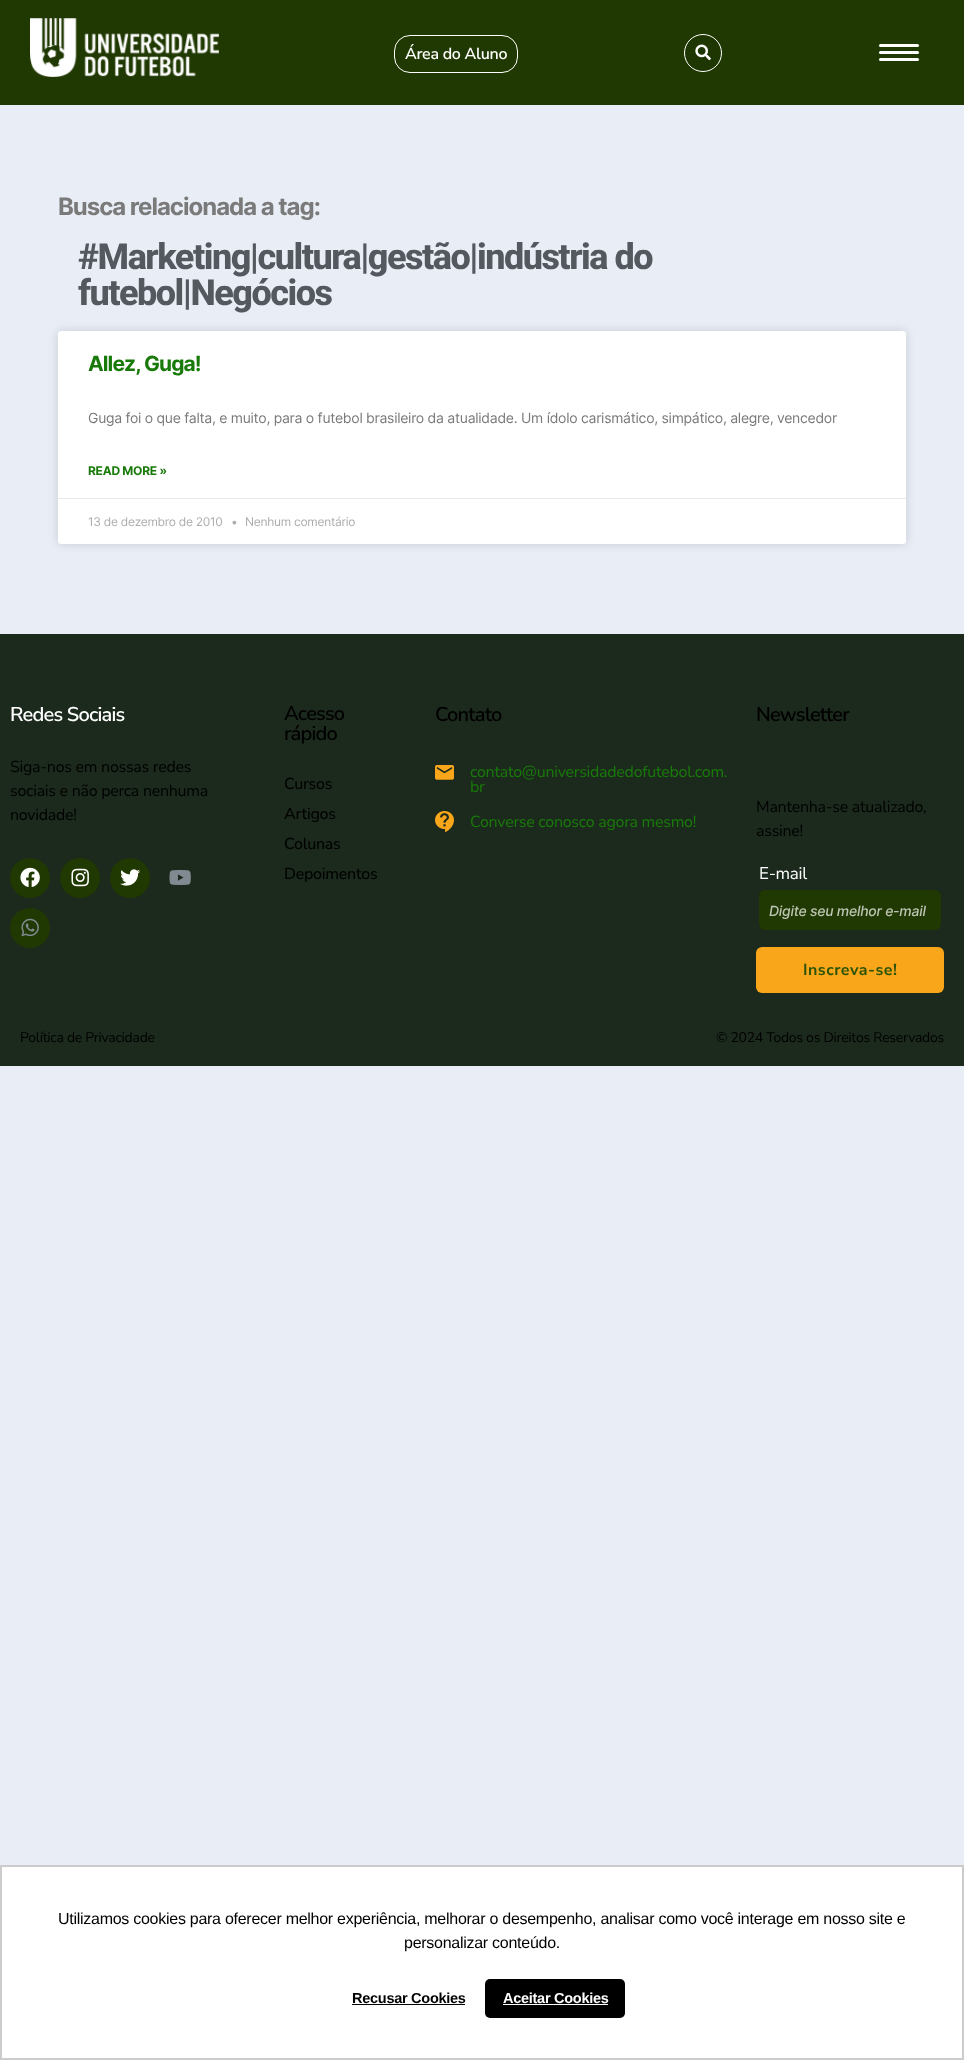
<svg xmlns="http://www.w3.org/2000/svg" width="964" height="2060">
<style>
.a{font:600 16px Nunito Sans;letter-spacing:-0.27px;fill:#fff}
.b{font:bold 24px Inter;letter-spacing:-1px;fill:#7a7a7a}
.c{font:800 36px Roboto;letter-spacing:-1.5px;fill:#54595f}
.d{font:bold 21px Inter;letter-spacing:-0.9px;fill:#187a09}
.e{font:14px Inter;letter-spacing:-0.27px;fill:#7a7a7a}
.f{font:bold 12px Inter;letter-spacing:-0.27px;fill:#187a09}
.g{font:12px Inter;letter-spacing:-0.27px;fill:#adadad}
.h{font:600 20px Nunito Sans;letter-spacing:-0.8px;fill:#fff}
.i{font:16px Nunito Sans;letter-spacing:-0.27px;fill:#000}
.j{font:600 20px Nunito Sans;letter-spacing:-0.8px;fill:#000}
.k{font:500 16px Nunito Sans;letter-spacing:-0.27px;fill:#000}
.l{font:16px Nunito Sans;letter-spacing:-0.27px;fill:#187a09}
.m{font:17px Nunito Sans;letter-spacing:-0.27px;fill:#fff}
.n{font:italic 500 14px Inter;letter-spacing:-0.25px;fill:#bcc4b3}
.o{font:bold 16px Nunito Sans;letter-spacing:0.5px;fill:#2d5308}
.p{font:14px Nunito Sans;letter-spacing:-0.27px;fill:#000}
.q{font:16px Liberation Sans;letter-spacing:-0.27px;fill:#000}
.r{font:bold 14.5px Liberation Sans;letter-spacing:-0.27px;fill:#000}
.s{font:bold 14.5px Liberation Sans;letter-spacing:-0.27px;fill:#fff}
</style>
<rect width="100%" height="100%" fill="#e9eef6"/>
<path fill="#203902" d="M0 0h964v105H0z"/>
<image href="1.png" x="30" y="18" width="189" height="59"/>
<rect fill="none" stroke="#fff" x="394.5" y="35.5" width="123" height="37" rx="15.5"/>
<circle fill="#1e3602" stroke="#fff" cx="703" cy="53" r="18.5"/>
<image href="2.png" x="695" y="44" width="16" height="17"/>
<rect fill="#fff" x="879" y="44" width="40" height="3" rx="1.5"/>
<rect fill="#fff" x="879" y="51" width="40" height="3" rx="1.5"/>
<rect fill="#fff" x="879" y="58" width="40" height="3" rx="1.5"/>
<rect fill="#00000026" filter="blur(5px)" x="58" y="331" width="848" height="213" rx="3"/>
<rect fill="#fff" x="58" y="331" width="848" height="213" rx="3"/>
<path fill="#eaeaea" d="M58 498h848v1H58z"/>
<path fill="#1c2a1d" d="M0 634h964v432H0z"/>
<circle fill="#203902" cx="30" cy="878" r="20"/>
<image href="3.png" x="20" y="867" width="20" height="20"/>
<circle fill="#203902" cx="80" cy="878" r="20"/>
<image href="4.png" x="71" y="868" width="18" height="19"/>
<circle fill="#203902" cx="130" cy="878" r="20"/>
<image href="5.png" x="120" y="869" width="20" height="17"/>
<image href="6.png" x="169" y="870" width="22" height="15"/>
<circle fill="#203902" cx="30" cy="928" r="20"/>
<image href="7.png" x="21" y="918" width="18" height="19"/>
<image href="8.png" x="435" y="765" width="19" height="15"/>
<image href="9.png" x="435" y="811" width="19" height="21"/>
<rect fill="#203902" x="759" y="890" width="182" height="40" rx="6"/>
<rect fill="#f9a61a" x="756" y="947" width="188" height="46" rx="6"/>
<path fill="#fff" stroke="#ccc" stroke-width="2" d="M1 1866h962v193H1z"/>
<path fill="#000" d="M352 2004h113v1H352z"/>
<rect fill="#000" x="485" y="1979" width="140" height="39" rx="5"/>
<path fill="#fff" d="M503 2004h105v1H503z"/>
<text class="a" x="405" y="59">Área do Aluno</text>
<text class="b" x="58" y="215">Busca relacionada a tag:</text>
<text class="c" x="78" y="269">#Marketing|cultura|gestão|indústria do</text>
<text class="c" x="78" y="305">futebol|Negócios</text>
<text class="d" x="88" y="371">Allez, Guga!</text>
<text class="e" x="88" y="423">Guga foi o que falta, e muito, para o futebol brasileiro da atualidade. Um ídolo carismático, simpático, alegre, vencedor</text>
<text class="f" x="88" y="475">READ MORE »</text>
<text class="g" x="88" y="526">13 de dezembro de 2010</text>
<text class="g" x="231" y="526">•</text>
<text class="g" x="245" y="526">Nenhum comentário</text>
<text class="h" x="10" y="721">Redes Sociais</text>
<text class="i" x="10" y="772">Siga-nos em nossas redes</text>
<text class="i" x="10" y="796">sociais e não perca nenhuma</text>
<text class="i" x="10" y="820">novidade!</text>
<text class="j" x="284" y="720">Acesso</text>
<text class="j" x="284" y="740">rápido</text>
<text class="k" x="284" y="789">Cursos</text>
<text class="k" x="284" y="819">Artigos</text>
<text class="k" x="284" y="849">Colunas</text>
<text class="k" x="284" y="879">Depoimentos</text>
<text class="j" x="435" y="721">Contato</text>
<text class="l" x="470" y="777">contato@universidadedofutebol.com.</text>
<text class="l" x="470" y="792">br</text>
<text class="l" x="470" y="827">Converse conosco agora mesmo!</text>
<text class="j" x="756" y="721">Newsletter</text>
<text class="i" x="756" y="812">Mantenha-se atualizado,</text>
<text class="i" x="756" y="836">assine!</text>
<text class="m" x="759" y="879">E-mail</text>
<text class="n" x="769" y="916">Digite seu melhor e-mail</text>
<text class="o" x="803" y="975">Inscreva-se!</text>
<text class="p" x="20" y="1042">Política de Privacidade</text>
<text class="p" x="716" y="1042">© 2024 Todos os Direitos Reservados</text>
<text class="q" x="58" y="1924">Utilizamos cookies para oferecer melhor experiência, melhorar o desempenho, analisar como você interage em nosso site e</text>
<text class="q" x="404" y="1948">personalizar conteúdo.</text>
<text class="r" x="352" y="2003">Recusar Cookies</text>
<text class="s" x="503" y="2003">Aceitar Cookies</text>
</svg>
